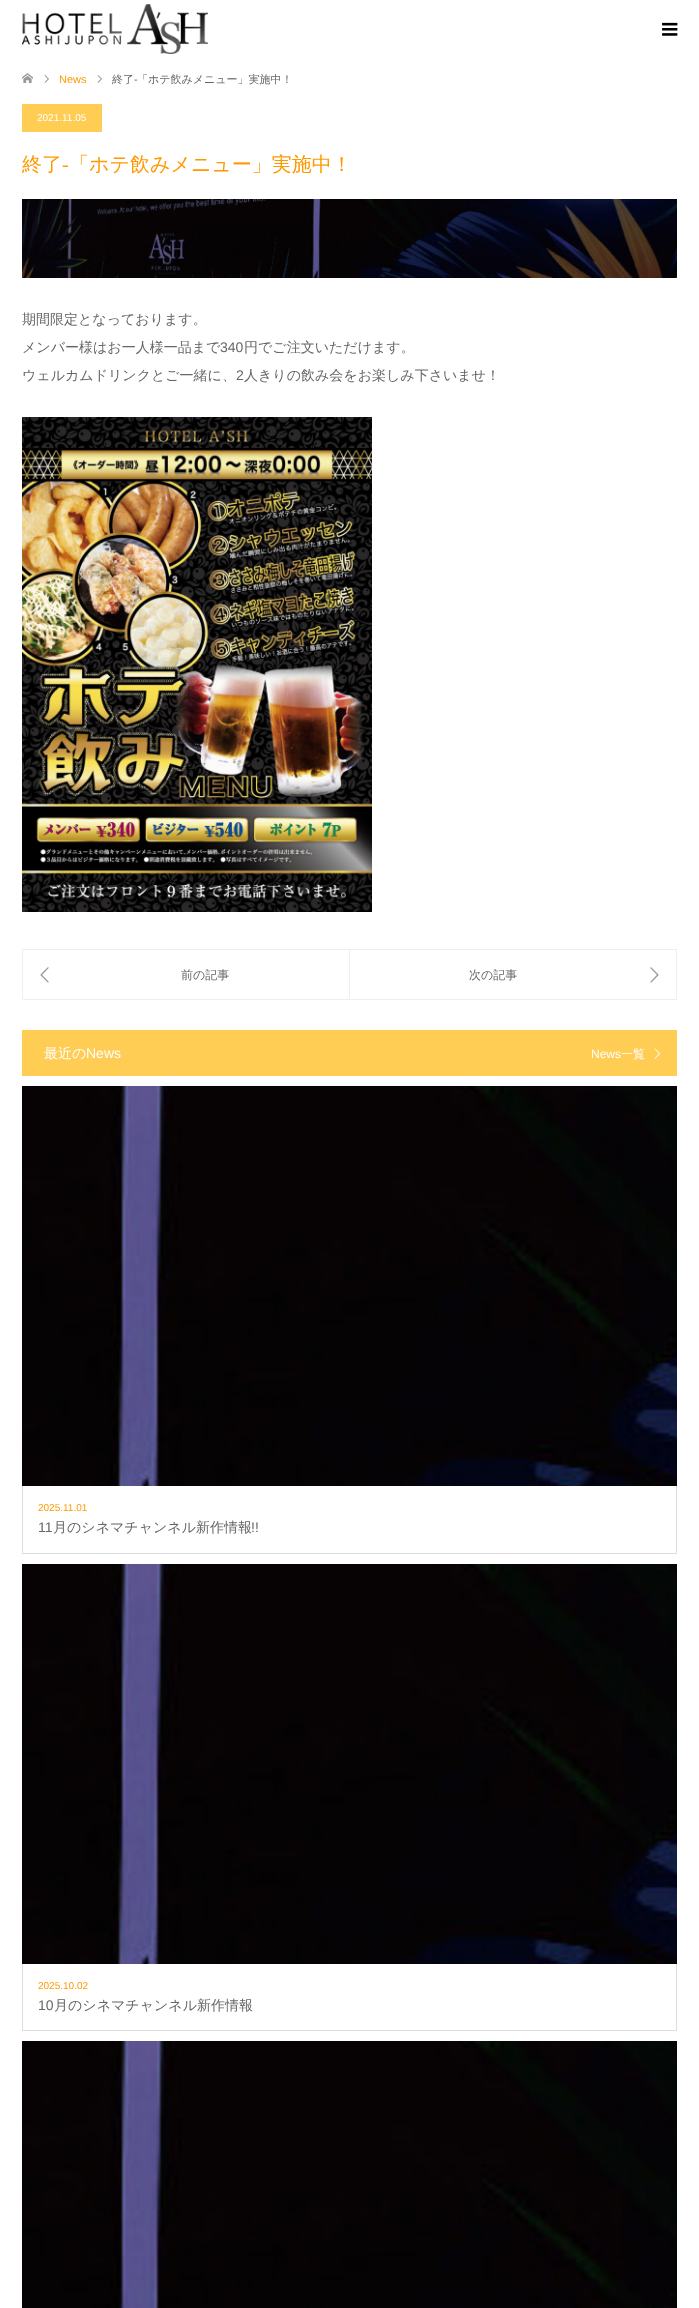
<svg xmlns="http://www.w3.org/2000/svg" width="699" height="2308">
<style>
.a{font:11px Liberation Sans;fill:#f90}
.b{font:500 11px WenQuanYi Zen Hei;fill:#666}
.c{font:11px Liberation Sans;fill:#666}
.d{font:10px Liberation Sans;fill:#fff}
.e{font:500 20px WenQuanYi Zen Hei;fill:#f90}
.f{font:20px Liberation Serif;fill:#f90}
.g{font:500 14px WenQuanYi Zen Hei;fill:#666}
.h{font:14px Liberation Sans;fill:#666}
.i{font:500 12px WenQuanYi Zen Hei;fill:#666}
.j{font:500 14px WenQuanYi Zen Hei;fill:#fff}
.k{font:14px Liberation Sans;fill:#fff}
.l{font:12px Liberation Sans;fill:#fff}
.m{font:500 12px WenQuanYi Zen Hei;fill:#fff}
.n{font:10px Liberation Sans;fill:#f90}
</style>
<rect width="100%" height="100%" fill="#fff"/>
<image href="1.png" x="22" y="4" width="186" height="50"/>
<image href="2.png" x="662" y="22" width="16" height="14"/>
<image href="3.png" x="22" y="73" width="11" height="10"/>
<image href="4.png" x="44" y="75" width="5" height="8"/>
<image href="4.png" x="97" y="75" width="5" height="8"/>
<path fill="#ffcc54" d="M22 104h80v28H22z"/>
<image href="5.png" x="22" y="199" width="655" height="79"/>
<image href="6.png" x="22" y="417" width="350" height="495"/>
<path fill="none" stroke="#eee" d="M22.5 949.5h327v50H22.5z"/>
<image href="7.png" x="40" y="967" width="9" height="16"/>
<path fill="#eee" d="M350 949h327v1H350z"/>
<path fill="#eee" d="M676 949h1v51H676z"/>
<path fill="#eee" d="M350 999h327v1H350z"/>
<image href="8.png" x="650" y="967" width="9" height="16"/>
<path fill="#ffcc54" d="M22 1030h655v46H22z"/>
<image href="9.png" x="654" y="1048" width="6" height="11"/>
<path fill="#ddd" d="M22 1553h655v1H22z"/>
<image href="10.png" x="22" y="1086" width="655" height="400"/>
<path fill="#ddd" d="M676 1486h1v67H676z"/>
<path fill="#ddd" d="M22 1486h1v67H22z"/>
<path fill="#ddd" d="M22 2030h655v1H22z"/>
<image href="10.png" x="22" y="1564" width="655" height="400"/>
<path fill="#ddd" d="M676 1964h1v66H676z"/>
<path fill="#ddd" d="M22 1964h1v66H22z"/>
<image href="11.png" x="22" y="2041" width="655" height="267"/>
<text class="a" x="59" y="83">News</text>
<text class="b" x="112" y="83">終了</text>
<text class="c" x="134" y="83">-</text>
<text class="b" x="137" y="83">「ホテ飲みメニュー」実施中！</text>
<text class="d" x="37" y="121">2021.11.05</text>
<text class="e" x="22" y="171">終了</text>
<text class="f" x="62" y="171">-</text>
<text class="e" x="69" y="171">「ホテ飲みメニュー」実施中！</text>
<text class="g" x="22" y="324">期間限定となっております。</text>
<text class="g" x="22" y="352">メンバー様はお一人様一品まで</text>
<text class="h" x="220" y="352">340</text>
<text class="g" x="244" y="352">円でご注文いただけます。</text>
<text class="g" x="22" y="380">ウェルカムドリンクとご一緒に、</text>
<text class="h" x="236" y="380">2</text>
<text class="g" x="244" y="380">人きりの飲み会をお楽しみ下さいませ！</text>
<text class="i" x="181" y="979">前の記事</text>
<text class="i" x="469" y="979">次の記事</text>
<text class="j" x="44" y="1058">最近の</text>
<text class="k" x="86" y="1058">News</text>
<text class="l" x="591" y="1058">News</text>
<text class="m" x="621" y="1058">一覧</text>
<text class="n" x="38" y="1511">2025.11.01</text>
<text class="h" x="38" y="1532">11</text>
<text class="g" x="53" y="1532">月のシネマチャンネル新作情報</text>
<text class="h" x="251" y="1532">!!</text>
<text class="n" x="38" y="1989">2025.10.02</text>
<text class="h" x="38" y="2010">10</text>
<text class="g" x="54" y="2010">月のシネマチャンネル新作情報</text>
</svg>
